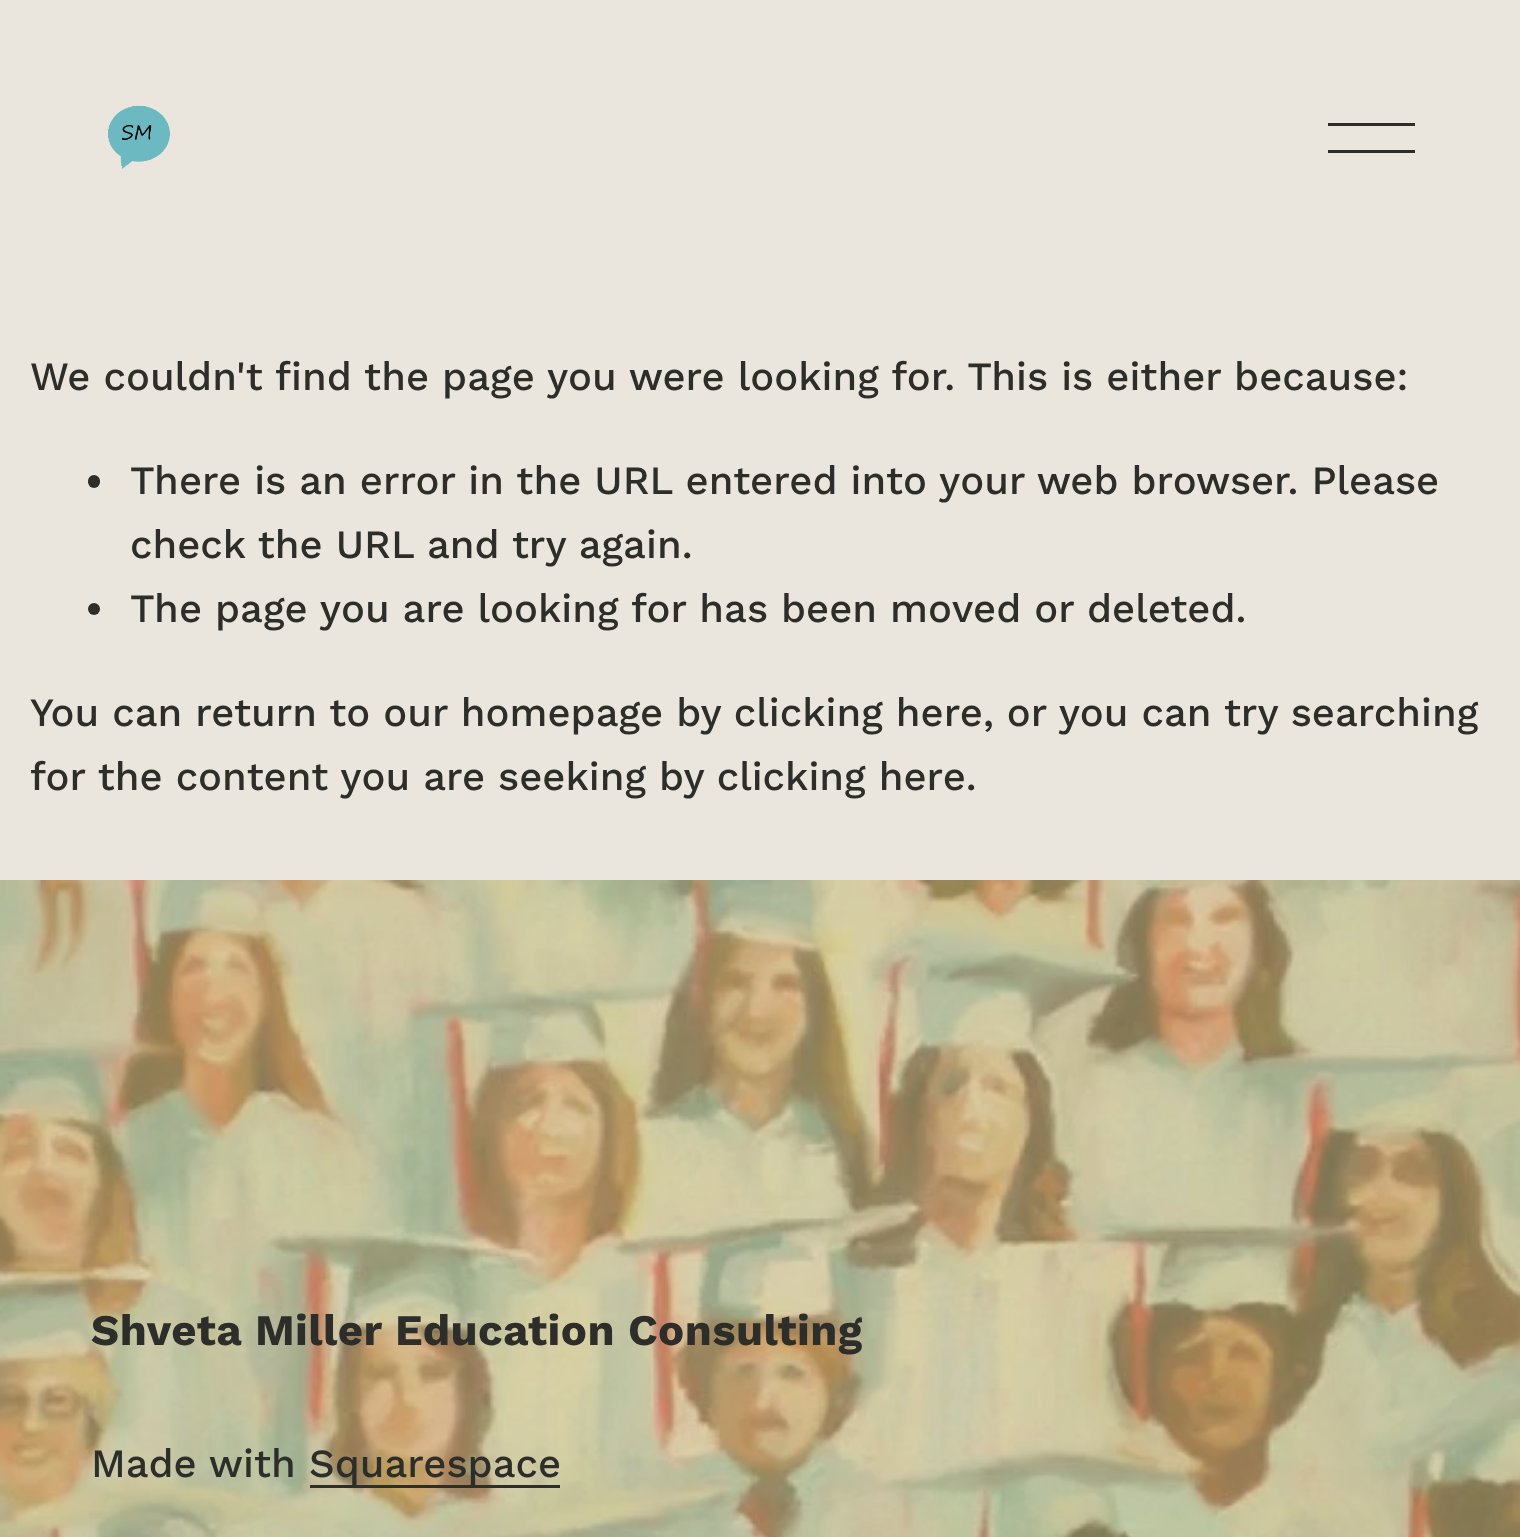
<svg xmlns="http://www.w3.org/2000/svg" width="1520" height="1537">
<style>
.a{font:500 40px Work Sans;fill:#2d2d2a}
.b{font:bold 43.7px Work Sans;letter-spacing:0.45px;fill:#2d2d2a}
</style>
<rect width="100%" height="100%" fill="#eae6dd"/>
<image href="1.png" x="108" y="105" width="62" height="64"/>
<path fill="#2d2d2a" d="M1328 123h87v3H1328z"/>
<path fill="#2d2d2a" d="M1328 150h87v3H1328z"/>
<rect fill="#2d2d2a" x="88" y="475" width="12" height="13" rx="6"/>
<circle fill="#2d2d2a" cx="94" cy="609" r="6"/>
<image href="2.png" x="0" y="880" width="1520" height="657"/>
<path fill="#2d2d2a" d="M310 1485h250v3H310z"/>
<text class="a" x="30" y="390">We couldn't find the page you were looking for. This is either because:</text>
<text class="a" x="130" y="494">There is an error in the URL entered into your web browser. Please</text>
<text class="a" x="130" y="558">check the URL and try again.</text>
<text class="a" x="130" y="622">The page you are looking for has been moved or deleted.</text>
<text class="a" x="30" y="726">You can return to our homepage by clicking here, or you can try searching</text>
<text class="a" x="30" y="790">for the content you are seeking by clicking here.</text>
<text class="b" x="91" y="1345">Shveta Miller Education Consulting</text>
<text class="a" x="91" y="1477">Made with</text>
<text class="a" x="309" y="1477">Squarespace</text>
</svg>
